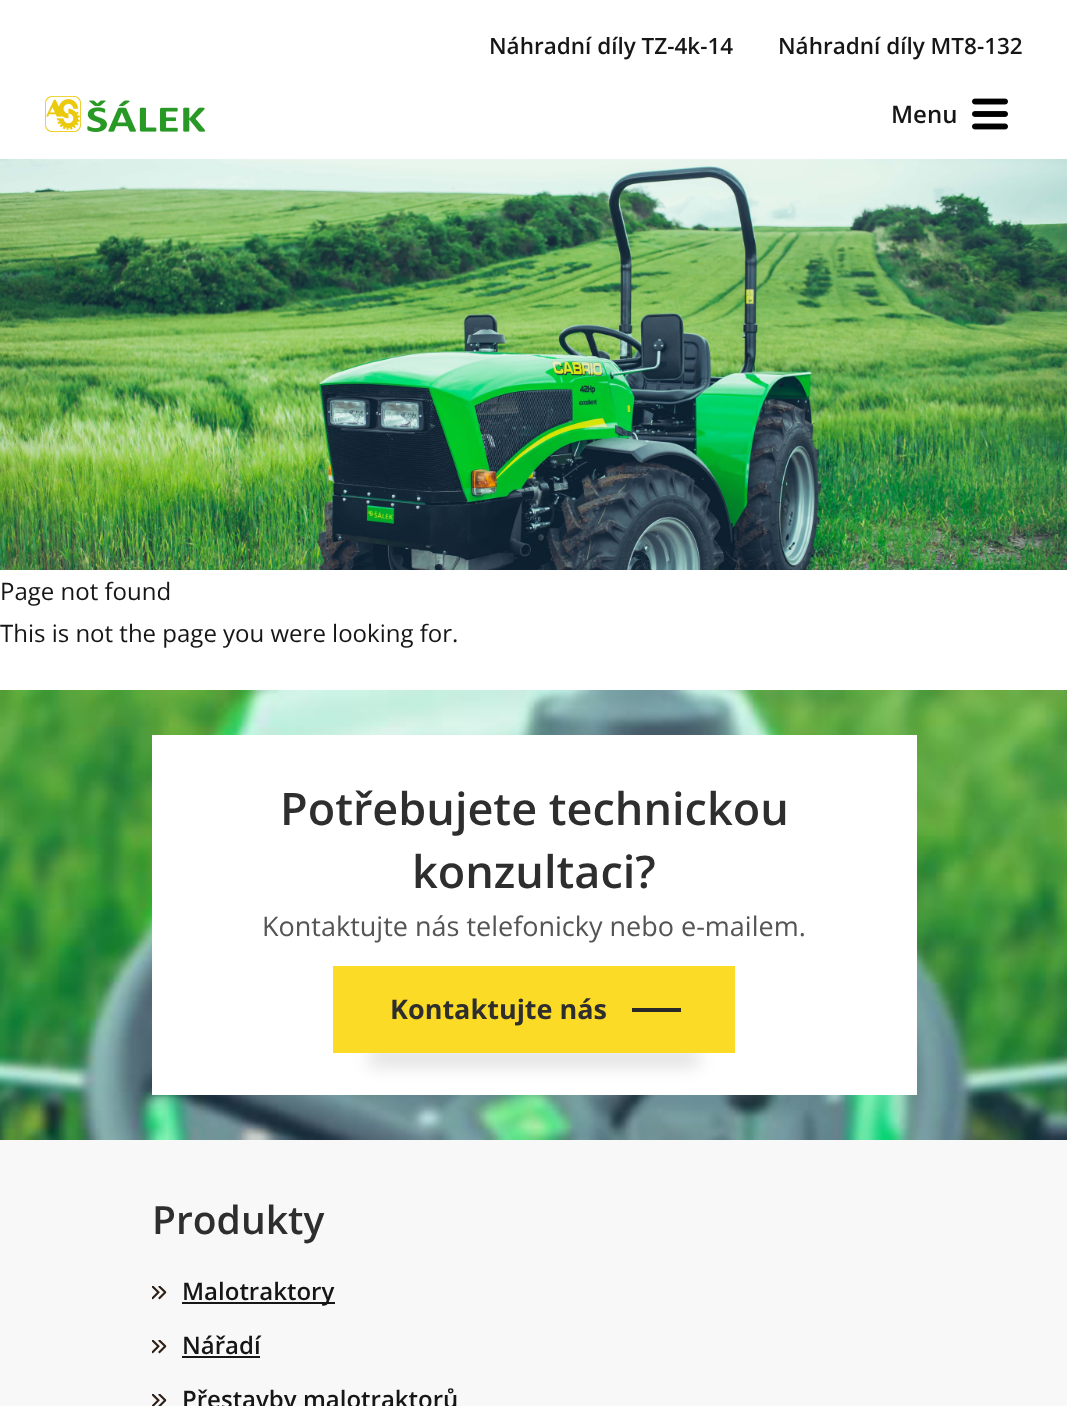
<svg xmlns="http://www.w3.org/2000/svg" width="1067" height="1406">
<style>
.a{font:600 22.5px Open Sans;fill:#161616}
.b{font:600 24px Open Sans;fill:#161616}
.c{font:24px Open Sans;fill:#161616}
.d{font:600 45px Open Sans;fill:#2e2e2e}
.e{font:27px Open Sans;fill:#545454}
.f{font:bold 27px Open Sans;fill:#2e2e2e}
.g{font:600 39px Open Sans;fill:#2e2e2e}
</style>
<rect width="100%" height="100%" fill="#fff"/>
<image href="1.png" x="45" y="96" width="161" height="36"/>
<image href="2.png" x="972" y="98" width="36" height="32"/>
<image href="3.png" x="0" y="159" width="1067" height="411"/>
<image href="4.png" x="0" y="690" width="1067" height="450"/>
<path fill="#fff" d="M152 735h765v360H152z"/>
<path fill="#00000026" filter="blur(9px)" d="M369 1050h330v15H369z"/>
<path fill="#fcdb26" d="M333 966h402v87H333z"/>
<path fill="#292929" d="M632 1008h49v4H632z"/>
<path fill="#f8f8f8" d="M0 1140h1067v266H0z"/>
<image href="5.png" x="152" y="1286" width="15" height="14"/>
<path fill="#161616" d="M182 1302h153v2H182z"/>
<image href="5.png" x="152" y="1340" width="15" height="14"/>
<path fill="#161616" d="M182 1356h78v2H182z"/>
<image href="6.png" x="152" y="1394" width="15" height="12"/>
<text class="a" x="489" y="54">Náhradní díly TZ-4k-14</text>
<text class="a" x="778" y="54">Náhradní díly MT8-132</text>
<text class="b" x="891" y="123">Menu</text>
<text class="c" x="0" y="600">Page not found</text>
<text class="c" x="0" y="642">This is not the page you were looking for.</text>
<text class="d" x="280" y="825">Potřebujete technickou</text>
<text class="d" x="412" y="888">konzultaci?</text>
<text class="e" x="262" y="936">Kontaktujte nás telefonicky nebo e-mailem.</text>
<text class="f" x="390" y="1019">Kontaktujte nás</text>
<text class="g" x="152" y="1234">Produkty</text>
<text class="b" x="182" y="1300">Malotraktory</text>
<text class="b" x="182" y="1354">Nářadí</text>
<text class="b" x="182" y="1408">Přestavby malotraktorů</text>
</svg>
